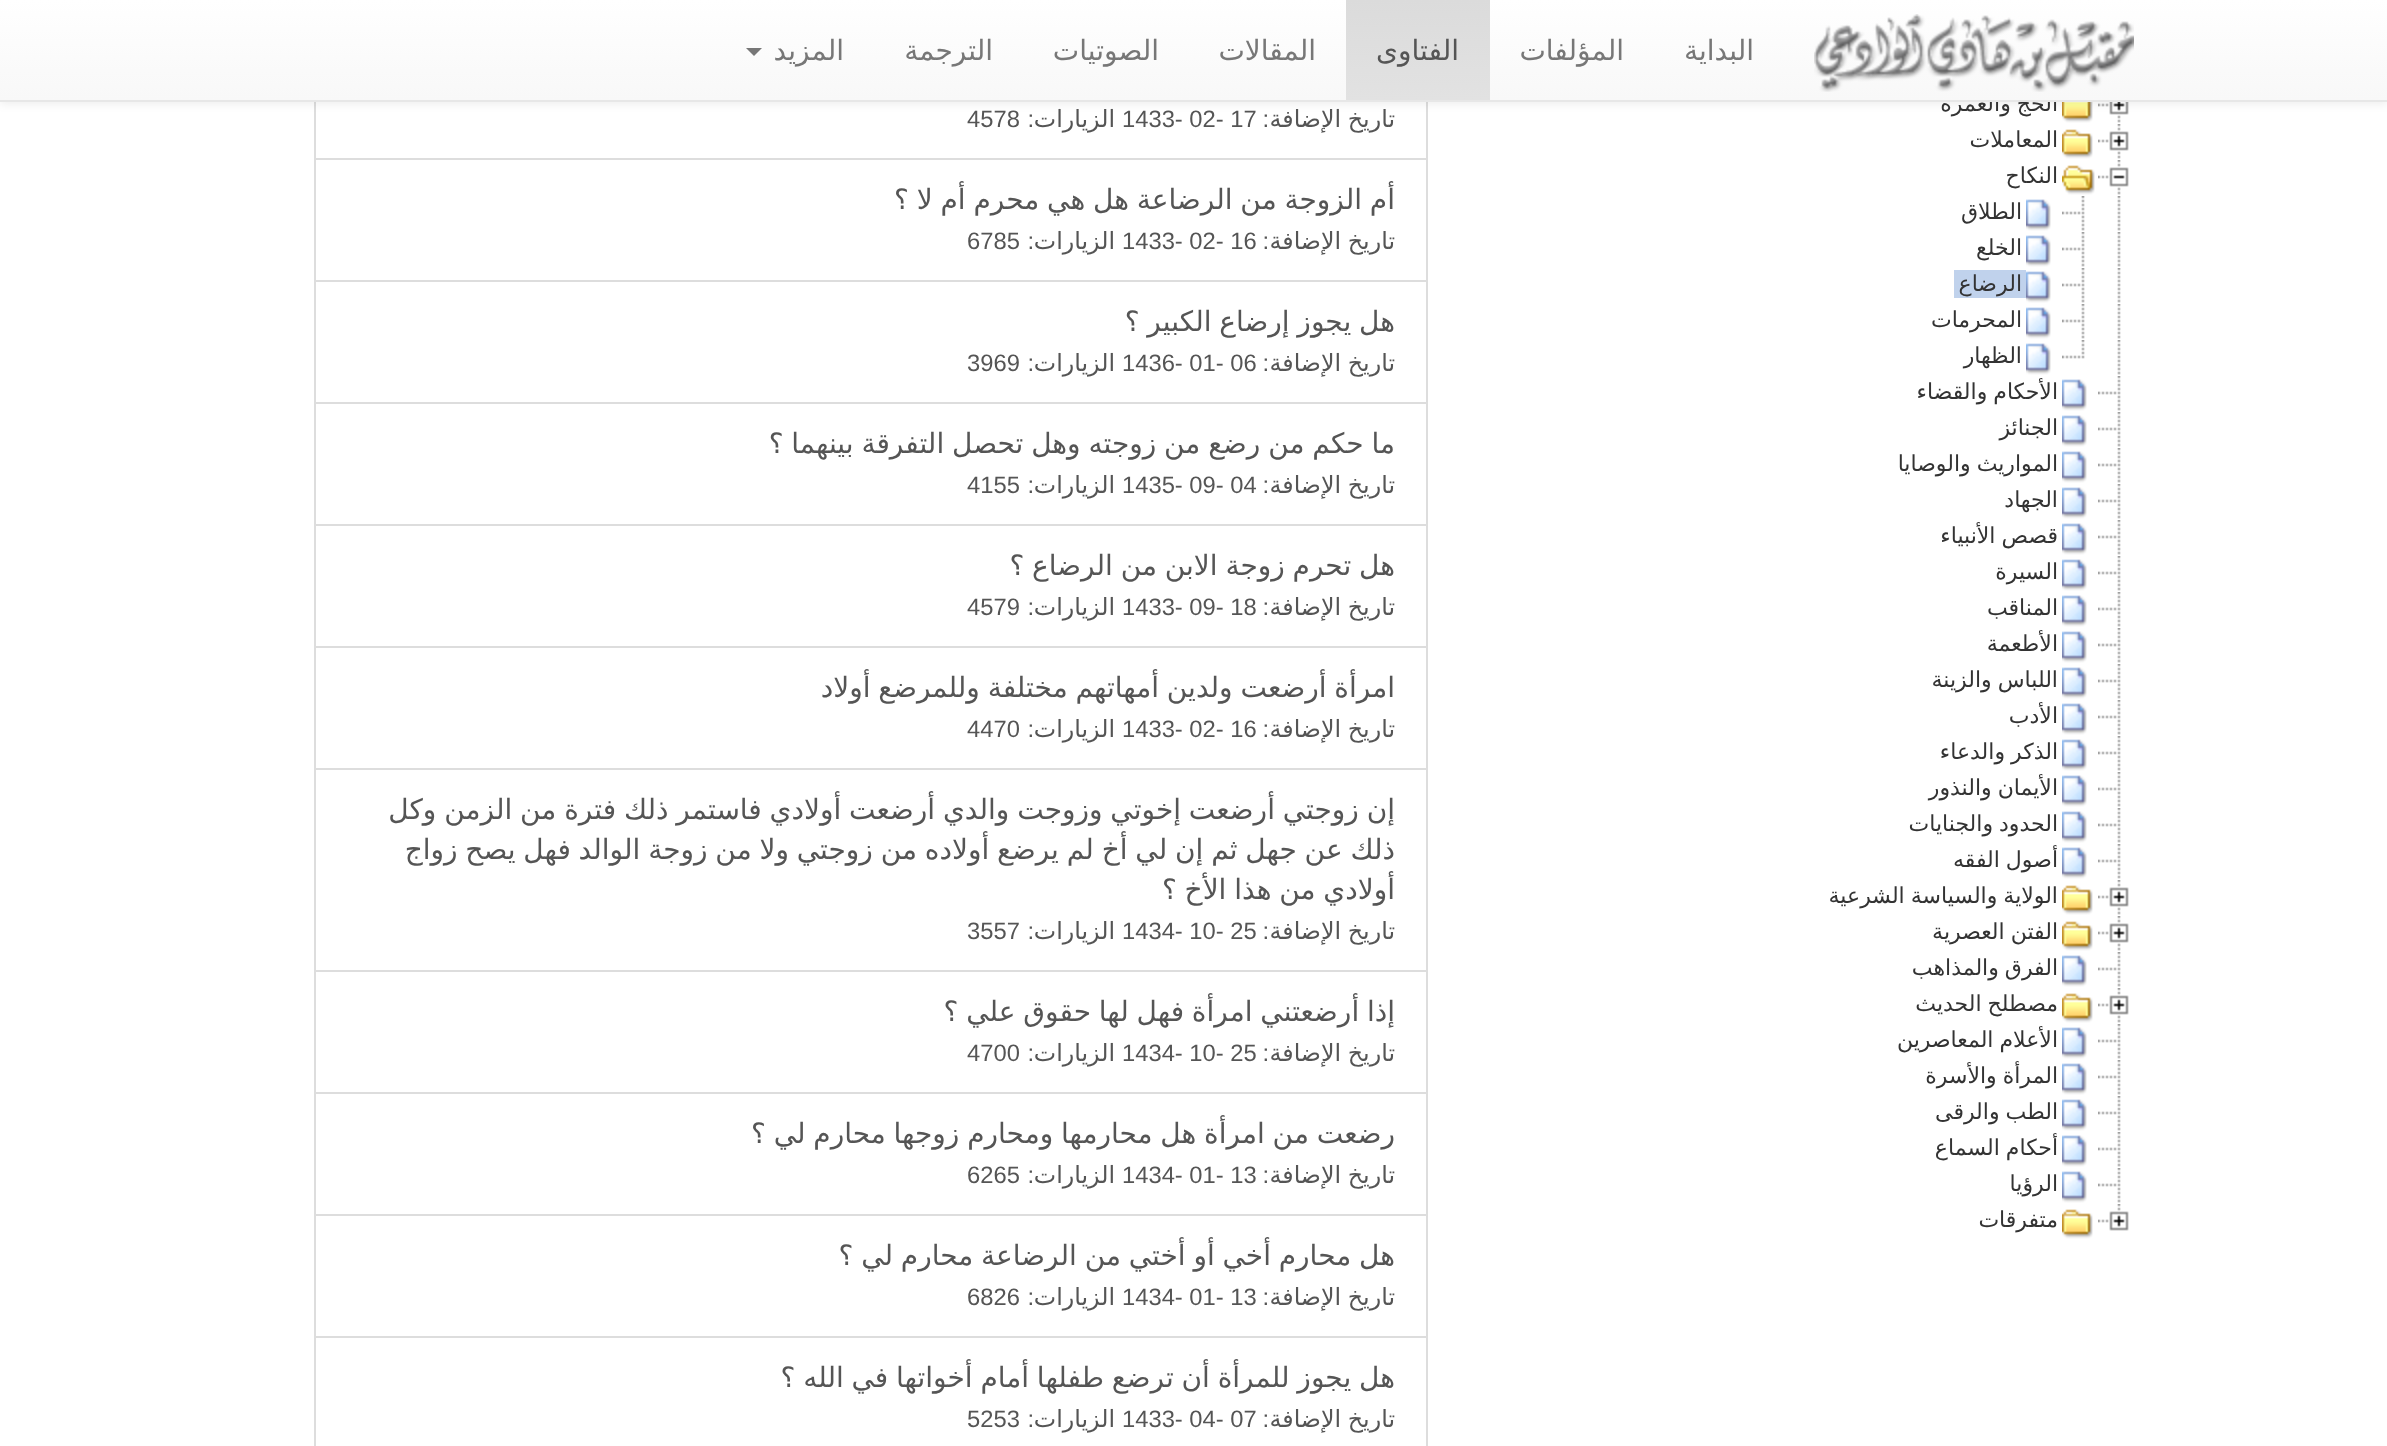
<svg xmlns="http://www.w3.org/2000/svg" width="2387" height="1446">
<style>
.a{font:22px DejaVu Sans;direction:rtl;fill:#333}
.b{font:28px DejaVu Sans;direction:rtl;fill:#777}
.c{font:28px DejaVu Sans;direction:rtl;fill:#555}
.d{font:23.75px DejaVu Sans;direction:rtl;fill:#555}
.e{font:23.75px Liberation Sans;direction:rtl;fill:#555}
.f{font:23.75px Liberation Sans;fill:#555}
</style>
<defs>
<linearGradient id="g1" gradientUnits="userSpaceOnUse" x1="1194" y1="0" x2="1194" y2="100"><stop offset="0" stop-color="#fff"/><stop offset="1" stop-color="#f8f8f8"/></linearGradient>
<linearGradient id="g2" gradientUnits="userSpaceOnUse" x1="1418" y1="0" x2="1418" y2="100"><stop offset="0" stop-color="#dbdbdb"/><stop offset="1" stop-color="#e2e2e2"/></linearGradient>
</defs>
<rect width="100%" height="100%" fill="#fff"/>
<image href="2.png" x="2098" y="102" width="31" height="21"/>
<image href="3.png" x="2062" y="102" width="31" height="21"/>
<path fill="none" stroke="#ddd" stroke-width="2" d="M315 -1h1112v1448H315z"/>
<path fill="#00000012" filter="blur(5px)" d="M0 2h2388v102H0z"/>
<image href="4.png" x="2098" y="124" width="31" height="35"/>
<image href="5.png" x="2062" y="129" width="31" height="30"/>
<image href="6.png" x="2098" y="160" width="31" height="35"/>
<image href="7.png" x="2062" y="165" width="33" height="30"/>
<image href="8.png" x="2117" y="196" width="4" height="35"/>
<image href="9.png" x="2062" y="196" width="23" height="35"/>
<image href="10.png" x="2026" y="199" width="25" height="32"/>
<image href="8.png" x="2117" y="232" width="4" height="35"/>
<image href="9.png" x="2062" y="232" width="23" height="35"/>
<image href="10.png" x="2026" y="235" width="25" height="32"/>
<image href="8.png" x="2117" y="268" width="4" height="35"/>
<image href="9.png" x="2062" y="268" width="23" height="35"/>
<image href="10.png" x="2026" y="271" width="25" height="32"/>
<path fill="#c0d2ec" d="M1954 270h72v28H1954z"/>
<image href="8.png" x="2117" y="304" width="4" height="35"/>
<image href="9.png" x="2062" y="304" width="23" height="35"/>
<image href="10.png" x="2026" y="307" width="25" height="32"/>
<image href="8.png" x="2117" y="340" width="4" height="35"/>
<image href="11.png" x="2062" y="340" width="23" height="19"/>
<image href="10.png" x="2026" y="343" width="25" height="32"/>
<image href="9.png" x="2098" y="376" width="23" height="35"/>
<image href="10.png" x="2062" y="379" width="25" height="32"/>
<image href="9.png" x="2098" y="412" width="23" height="35"/>
<image href="10.png" x="2062" y="415" width="25" height="32"/>
<image href="9.png" x="2098" y="448" width="23" height="35"/>
<image href="10.png" x="2062" y="451" width="25" height="32"/>
<image href="9.png" x="2098" y="484" width="23" height="35"/>
<image href="10.png" x="2062" y="487" width="25" height="32"/>
<image href="9.png" x="2098" y="520" width="23" height="35"/>
<image href="10.png" x="2062" y="523" width="25" height="32"/>
<image href="9.png" x="2098" y="556" width="23" height="35"/>
<image href="10.png" x="2062" y="559" width="25" height="32"/>
<image href="9.png" x="2098" y="592" width="23" height="35"/>
<image href="10.png" x="2062" y="595" width="25" height="32"/>
<image href="9.png" x="2098" y="628" width="23" height="35"/>
<image href="10.png" x="2062" y="631" width="25" height="32"/>
<image href="9.png" x="2098" y="664" width="23" height="35"/>
<image href="10.png" x="2062" y="667" width="25" height="32"/>
<image href="9.png" x="2098" y="700" width="23" height="35"/>
<image href="10.png" x="2062" y="703" width="25" height="32"/>
<image href="9.png" x="2098" y="736" width="23" height="35"/>
<image href="10.png" x="2062" y="739" width="25" height="32"/>
<image href="9.png" x="2098" y="772" width="23" height="35"/>
<image href="10.png" x="2062" y="775" width="25" height="32"/>
<image href="9.png" x="2098" y="808" width="23" height="35"/>
<image href="10.png" x="2062" y="811" width="25" height="32"/>
<image href="9.png" x="2098" y="844" width="23" height="35"/>
<image href="10.png" x="2062" y="847" width="25" height="32"/>
<image href="4.png" x="2098" y="880" width="31" height="35"/>
<image href="5.png" x="2062" y="885" width="31" height="30"/>
<image href="4.png" x="2098" y="916" width="31" height="35"/>
<image href="5.png" x="2062" y="921" width="31" height="30"/>
<image href="9.png" x="2098" y="952" width="23" height="35"/>
<image href="10.png" x="2062" y="955" width="25" height="32"/>
<image href="4.png" x="2098" y="988" width="31" height="35"/>
<image href="5.png" x="2062" y="993" width="31" height="30"/>
<image href="9.png" x="2098" y="1024" width="23" height="35"/>
<image href="10.png" x="2062" y="1027" width="25" height="32"/>
<image href="9.png" x="2098" y="1060" width="23" height="35"/>
<image href="10.png" x="2062" y="1063" width="25" height="32"/>
<image href="9.png" x="2098" y="1096" width="23" height="35"/>
<image href="10.png" x="2062" y="1099" width="25" height="32"/>
<image href="9.png" x="2098" y="1132" width="23" height="35"/>
<image href="10.png" x="2062" y="1135" width="25" height="32"/>
<image href="9.png" x="2098" y="1168" width="23" height="35"/>
<image href="10.png" x="2062" y="1171" width="25" height="32"/>
<image href="12.png" x="2098" y="1204" width="31" height="27"/>
<image href="5.png" x="2062" y="1209" width="31" height="30"/>
<path fill="#ddd" d="M316 158h1110v2H316z"/>
<path fill="#ddd" d="M316 280h1110v2H316z"/>
<path fill="#ddd" d="M316 402h1110v2H316z"/>
<path fill="#ddd" d="M316 524h1110v2H316z"/>
<path fill="#ddd" d="M316 646h1110v2H316z"/>
<path fill="#ddd" d="M316 768h1110v2H316z"/>
<path fill="#ddd" d="M316 970h1110v2H316z"/>
<path fill="#ddd" d="M316 1092h1110v2H316z"/>
<path fill="#ddd" d="M316 1214h1110v2H316z"/>
<path fill="#ddd" d="M316 1336h1110v2H316z"/>
<text class="a" x="2058" y="111" word-spacing="-1">الحج والعمرة</text>
<path fill="url(#g1)" d="M0 0h2387v100H0z"/>
<path fill="#777" d="M746 48h16l-8 8z"/>
<text class="b" x="844" y="60">المزيد</text>
<text class="b" x="993" y="60">الترجمة</text>
<text class="b" x="1159" y="60">الصوتيات</text>
<text class="b" x="1316" y="60">المقالات</text>
<path fill="url(#g2)" d="M1346 0h144v100H1346z"/>
<text class="c" x="1459" y="60">الفتاوى</text>
<text class="b" x="1624" y="60">المؤلفات</text>
<text class="b" x="1754" y="60">البداية</text>
<image href="1.png" x="1814" y="14" width="320" height="78"/>
<path fill="#e7e7e7" d="M0 100h2387v2H0z"/>
<text class="a" x="2058" y="147">المعاملات</text>
<text class="a" x="2058" y="183">النكاح</text>
<text class="a" x="2022" y="219">الطلاق</text>
<text class="a" x="2022" y="255">الخلع</text>
<text class="a" x="2022" y="291">الرضاع</text>
<text class="a" x="2022" y="327">المحرمات</text>
<text class="a" x="2022" y="363">الظهار</text>
<text class="a" x="2058" y="399" word-spacing="-1">الأحكام والقضاء</text>
<text class="a" x="2058" y="435">الجنائز</text>
<text class="a" x="2058" y="471" word-spacing="-1">المواريث والوصايا</text>
<text class="a" x="2058" y="507">الجهاد</text>
<text class="a" x="2058" y="543" word-spacing="-1">قصص الأنبياء</text>
<text class="a" x="2058" y="579">السيرة</text>
<text class="a" x="2058" y="615">المناقب</text>
<text class="a" x="2058" y="651">الأطعمة</text>
<text class="a" x="2058" y="687" word-spacing="-1">اللباس والزينة</text>
<text class="a" x="2058" y="723">الأدب</text>
<text class="a" x="2058" y="759" word-spacing="-1">الذكر والدعاء</text>
<text class="a" x="2058" y="795" word-spacing="-1">الأيمان والنذور</text>
<text class="a" x="2058" y="831" word-spacing="-1">الحدود والجنايات</text>
<text class="a" x="2058" y="867" word-spacing="-1">أصول الفقه</text>
<text class="a" x="2058" y="903" word-spacing="-1">الولاية والسياسة الشرعية</text>
<text class="a" x="2058" y="939" word-spacing="-1">الفتن العصرية</text>
<text class="a" x="2058" y="975" word-spacing="-1">الفرق والمذاهب</text>
<text class="a" x="2058" y="1011" word-spacing="-1">مصطلح الحديث</text>
<text class="a" x="2058" y="1047" word-spacing="-1">الأعلام المعاصرين</text>
<text class="a" x="2058" y="1083" word-spacing="-1">المرأة والأسرة</text>
<text class="a" x="2058" y="1119" word-spacing="-1">الطب والرقى</text>
<text class="a" x="2058" y="1155" word-spacing="-1">أحكام السماع</text>
<text class="a" x="2058" y="1191">الرؤيا</text>
<text class="a" x="2058" y="1227">متفرقات</text>
<text class="d" x="1395" y="127" word-spacing="-1">تاريخ الإضافة</text>
<text class="e" x="1269" y="127">:</text>
<text class="f" x="1122" y="127">1433- 02- 17</text>
<text class="d" x="1115" y="127">الزيارات</text>
<text class="e" x="1034" y="127">:</text>
<text class="f" x="967" y="127">4578</text>
<text class="c" x="1395" y="209" word-spacing="-1.1">أم الزوجة من الرضاعة هل هي محرم أم لا ؟</text>
<text class="d" x="1395" y="249" word-spacing="-1">تاريخ الإضافة</text>
<text class="e" x="1269" y="249">:</text>
<text class="f" x="1122" y="249">1433- 02- 16</text>
<text class="d" x="1115" y="249">الزيارات</text>
<text class="e" x="1034" y="249">:</text>
<text class="f" x="967" y="249">6785</text>
<text class="c" x="1395" y="331" word-spacing="-1.1">هل يجوز إرضاع الكبير ؟</text>
<text class="d" x="1395" y="371" word-spacing="-1">تاريخ الإضافة</text>
<text class="e" x="1269" y="371">:</text>
<text class="f" x="1122" y="371">1436- 01- 06</text>
<text class="d" x="1115" y="371">الزيارات</text>
<text class="e" x="1034" y="371">:</text>
<text class="f" x="967" y="371">3969</text>
<text class="c" x="1395" y="453" word-spacing="-1.1">ما حكم من رضع من زوجته وهل تحصل التفرقة بينهما ؟</text>
<text class="d" x="1395" y="493" word-spacing="-1">تاريخ الإضافة</text>
<text class="e" x="1269" y="493">:</text>
<text class="f" x="1122" y="493">1435- 09- 04</text>
<text class="d" x="1115" y="493">الزيارات</text>
<text class="e" x="1034" y="493">:</text>
<text class="f" x="967" y="493">4155</text>
<text class="c" x="1395" y="575" word-spacing="-1.1">هل تحرم زوجة الابن من الرضاع ؟</text>
<text class="d" x="1395" y="615" word-spacing="-1">تاريخ الإضافة</text>
<text class="e" x="1269" y="615">:</text>
<text class="f" x="1122" y="615">1433- 09- 18</text>
<text class="d" x="1115" y="615">الزيارات</text>
<text class="e" x="1034" y="615">:</text>
<text class="f" x="967" y="615">4579</text>
<text class="c" x="1395" y="697" word-spacing="-1.1">امرأة أرضعت ولدين أمهاتهم مختلفة وللمرضع أولاد</text>
<text class="d" x="1395" y="737" word-spacing="-1">تاريخ الإضافة</text>
<text class="e" x="1269" y="737">:</text>
<text class="f" x="1122" y="737">1433- 02- 16</text>
<text class="d" x="1115" y="737">الزيارات</text>
<text class="e" x="1034" y="737">:</text>
<text class="f" x="967" y="737">4470</text>
<text class="c" x="1395" y="819" word-spacing="-1.1">إن زوجتي أرضعت</text>
<text class="c" x="1181" y="819" word-spacing="-1.1">إخوتي وزوجت والدي أرضعت أولادي فاستمر ذلك فترة من الزمن وكل</text>
<text class="c" x="1395" y="859" word-spacing="-1.1">ذلك عن جهل ثم إن لي أخ لم يرضع أولاده من زوجتي ولا من زوجة الوالد فهل يصح زواج</text>
<text class="c" x="1395" y="899" word-spacing="-1.1">أولادي من هذا الأخ ؟</text>
<text class="d" x="1395" y="939" word-spacing="-1">تاريخ الإضافة</text>
<text class="e" x="1269" y="939">:</text>
<text class="f" x="1122" y="939">1434- 10- 25</text>
<text class="d" x="1115" y="939">الزيارات</text>
<text class="e" x="1034" y="939">:</text>
<text class="f" x="967" y="939">3557</text>
<text class="c" x="1395" y="1021" word-spacing="-1.1">إذا أرضعتني امرأة فهل لها حقوق علي ؟</text>
<text class="d" x="1395" y="1061" word-spacing="-1">تاريخ الإضافة</text>
<text class="e" x="1269" y="1061">:</text>
<text class="f" x="1122" y="1061">1434- 10- 25</text>
<text class="d" x="1115" y="1061">الزيارات</text>
<text class="e" x="1034" y="1061">:</text>
<text class="f" x="967" y="1061">4700</text>
<text class="c" x="1395" y="1143" word-spacing="-1.1">رضعت من امرأة هل محارمها ومحارم زوجها محارم لي ؟</text>
<text class="d" x="1395" y="1183" word-spacing="-1">تاريخ الإضافة</text>
<text class="e" x="1269" y="1183">:</text>
<text class="f" x="1122" y="1183">1434- 01- 13</text>
<text class="d" x="1115" y="1183">الزيارات</text>
<text class="e" x="1034" y="1183">:</text>
<text class="f" x="967" y="1183">6265</text>
<text class="c" x="1395" y="1265" word-spacing="-1.1">هل محارم أخي أو أختي من الرضاعة محارم لي ؟</text>
<text class="d" x="1395" y="1305" word-spacing="-1">تاريخ الإضافة</text>
<text class="e" x="1269" y="1305">:</text>
<text class="f" x="1122" y="1305">1434- 01- 13</text>
<text class="d" x="1115" y="1305">الزيارات</text>
<text class="e" x="1034" y="1305">:</text>
<text class="f" x="967" y="1305">6826</text>
<text class="c" x="1395" y="1387" word-spacing="-1.1">هل يجوز للمرأة أن ترضع طفلها أمام أخواتها في الله ؟</text>
<text class="d" x="1395" y="1427" word-spacing="-1">تاريخ الإضافة</text>
<text class="e" x="1269" y="1427">:</text>
<text class="f" x="1122" y="1427">1433- 04- 07</text>
<text class="d" x="1115" y="1427">الزيارات</text>
<text class="e" x="1034" y="1427">:</text>
<text class="f" x="967" y="1427">5253</text>
</svg>
